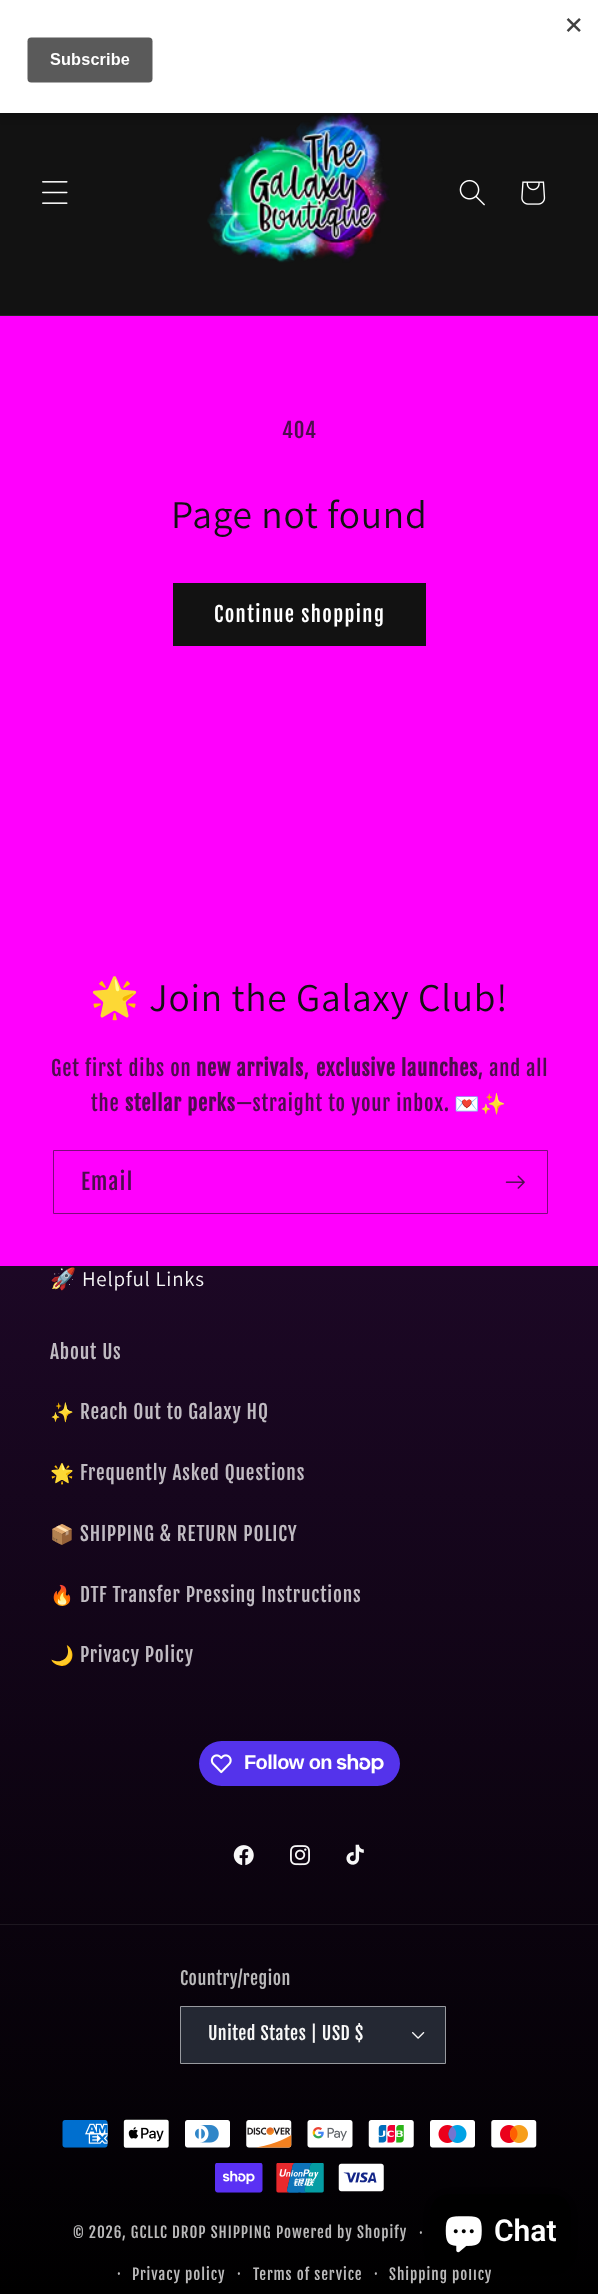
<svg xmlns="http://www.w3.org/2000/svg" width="598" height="2294">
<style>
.a{font:20.6px Fjalla One;letter-spacing:0.85px;fill:#4d0e4d}
.b{font:39.4px Assistant;letter-spacing:0.75px;fill:#121212}
.c{font:20.6px Fjalla One;letter-spacing:1.4px;fill:#fff}
.d{font:39.4px Noto Color Emoji;letter-spacing:0.75px;fill:#121212}
.e{font:bold 20.6px Fjalla One;letter-spacing:0.85px;fill:#4d0e4d}
.f{font:20.6px Noto Color Emoji;letter-spacing:0.85px;fill:#4d0e4d}
.g{font:22px Fjalla One;letter-spacing:1.4px;fill:#4d0e4d}
.h{font:21px Noto Color Emoji;letter-spacing:0.75px;fill:#f7f7f7}
.i{font:21px Assistant;letter-spacing:0.75px;fill:#f7f7f7}
.j{font:19.25px Fjalla One;letter-spacing:0.85px;fill:#c0bbc2}
.k{font:19.25px Noto Color Emoji;letter-spacing:0.85px;fill:#c0bbc2}
.l{font:bold 20px Liberation Sans;letter-spacing:-0.6px;fill:#fff}
.m{font:17.9px Fjalla One;letter-spacing:0.55px;fill:#bab9ba}
.n{font:17.9px Fjalla One;letter-spacing:0.55px;fill:#f7f7f7}
.o{font:15.1px Fjalla One;letter-spacing:0.95px;fill:#bab9ba}
.p{font:14px Fjalla One;letter-spacing:0.95px;fill:#bab9ba}
.q{font:600 30px Roboto;fill:#fff}
</style>
<defs>
<linearGradient id="g1" gradientUnits="userSpaceOnUse" x1="299" y1="0" x2="299" y2="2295"><stop offset="0" stop-color="#3f1153"/><stop offset="1" stop-color="#000"/></linearGradient>
</defs>
<rect width="100%" height="100%" fill="#ff00fd"/>
<path fill="#121212" d="M0 113h598v202H0z"/>
<image href="3.png" x="207" y="113" width="183" height="150"/>
<path fill="#00000033" filter="blur(4px)" d="M0 4h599v112H0z"/>
<path fill="#fff" d="M0 0h598v113H0z"/>
<image href="1.png" x="27" y="18" width="554" height="65"/>
<path fill="#252525" d="M0 315h598v1H0z"/>
<image href="2.png" x="42" y="181" width="26" height="23"/>
<image href="4.png" x="459" y="179" width="26" height="27"/>
<image href="5.png" x="521" y="181" width="25" height="24"/>
<path fill="#121212" d="M173 583h253v63H173z"/>
<path fill="none" stroke="#7d0a7c" d="M53.5 1150.5h494v63H53.5z"/>
<image href="6.png" x="505" y="1175" width="20" height="14"/>
<path fill="url(#g1)" d="M0 1266h598v1028H0z"/>
<rect fill="#5433eb" x="199" y="1741" width="201" height="45" rx="22.5"/>
<image href="7.png" x="210" y="1754" width="22" height="20"/>
<image href="8.png" x="336" y="1754" width="48" height="20"/>
<image href="9.png" x="233" y="1845" width="21" height="21"/>
<image href="10.png" x="290" y="1845" width="20" height="21"/>
<image href="11.png" x="346" y="1844" width="18" height="21"/>
<path fill="#1d1720" d="M0 1924h598v1H0z"/>
<path fill="#242833" d="M181 2007h264v56H181z"/>
<image href="12.png" x="412" y="2032" width="13" height="7"/>
<path fill="none" stroke="#989a9f" d="M180.5 2006.5h265v57H180.5z"/>
<image href="13.png" x="62" y="2120" width="46" height="28"/>
<image href="14.png" x="123" y="2119" width="47" height="29"/>
<image href="15.png" x="185" y="2120" width="45" height="28"/>
<image href="16.png" x="246" y="2120" width="46" height="28"/>
<image href="17.png" x="307" y="2120" width="46" height="28"/>
<image href="18.png" x="368" y="2120" width="46" height="28"/>
<image href="19.png" x="430" y="2120" width="45" height="28"/>
<image href="20.png" x="491" y="2120" width="46" height="28"/>
<image href="21.png" x="215" y="2163" width="48" height="30"/>
<image href="22.png" x="276" y="2163" width="48" height="30"/>
<image href="23.png" x="338" y="2163" width="46" height="29"/>
<rect fill="#00000026" filter="blur(3px)" x="430" y="2194" width="141" height="75" rx="20"/>
<text class="a" x="282" y="438">404</text>
<text class="b" x="171" y="528">Page not found</text>
<text class="c" x="214" y="622">Continue shopping</text>
<text class="d" x="90" y="1011">🌟</text>
<text class="b" x="149" y="1011">Join the Galaxy Club!</text>
<text class="a" x="51" y="1076">Get first dibs on</text>
<text class="e" x="196" y="1076">new arrivals</text>
<text class="a" x="304" y="1076">,</text>
<text class="e" x="316" y="1076">exclusive launches</text>
<text class="a" x="478" y="1076">, and all</text>
<text class="a" x="91" y="1111">the</text>
<text class="e" x="125" y="1111">stellar perks</text>
<text class="a" x="236" y="1111">—straight to your inbox.</text>
<text class="f" x="454" y="1111">💌✨</text>
<text class="g" x="81" y="1190">Email</text>
<text class="h" x="50" y="1286">🚀</text>
<text class="i" x="82" y="1286">Helpful Links</text>
<text class="j" x="50" y="1359">About Us</text>
<text class="k" x="50" y="1419">✨</text>
<text class="j" x="80" y="1419">Reach Out to Galaxy HQ</text>
<text class="k" x="50" y="1480">🌟</text>
<text class="j" x="80" y="1480">Frequently Asked Questions</text>
<text class="k" x="50" y="1541">📦</text>
<text class="j" x="80" y="1541">SHIPPING &amp; RETURN POLICY</text>
<text class="k" x="50" y="1602">🔥</text>
<text class="j" x="80" y="1602">DTF Transfer Pressing Instructions</text>
<text class="k" x="50" y="1662">🌙</text>
<text class="j" x="80" y="1662">Privacy Policy</text>
<text class="l" x="244" y="1769">Follow on</text>
<text class="m" x="180" y="1985">Country/region</text>
<text class="n" x="208" y="2040">United States | USD $</text>
<text class="o" x="73" y="2238">© 2026, GCLLC DROP SHIPPING</text>
<text class="o" x="276" y="2238">Powered by Shopify</text>
<text class="p" x="419" y="2238">·</text>
<text class="p" x="117" y="2279">·</text>
<text class="o" x="132" y="2280">Privacy policy</text>
<text class="p" x="237" y="2279">·</text>
<text class="o" x="253" y="2280">Terms of service</text>
<text class="p" x="374" y="2279">·</text>
<text class="o" x="389" y="2280">Shipping policy</text>
<rect fill="#000" x="430" y="2194" width="141" height="75" rx="20"/>
<image href="24.png" x="445" y="2216" width="37" height="37"/>
<text class="q" x="494" y="2241">Chat</text>
</svg>
